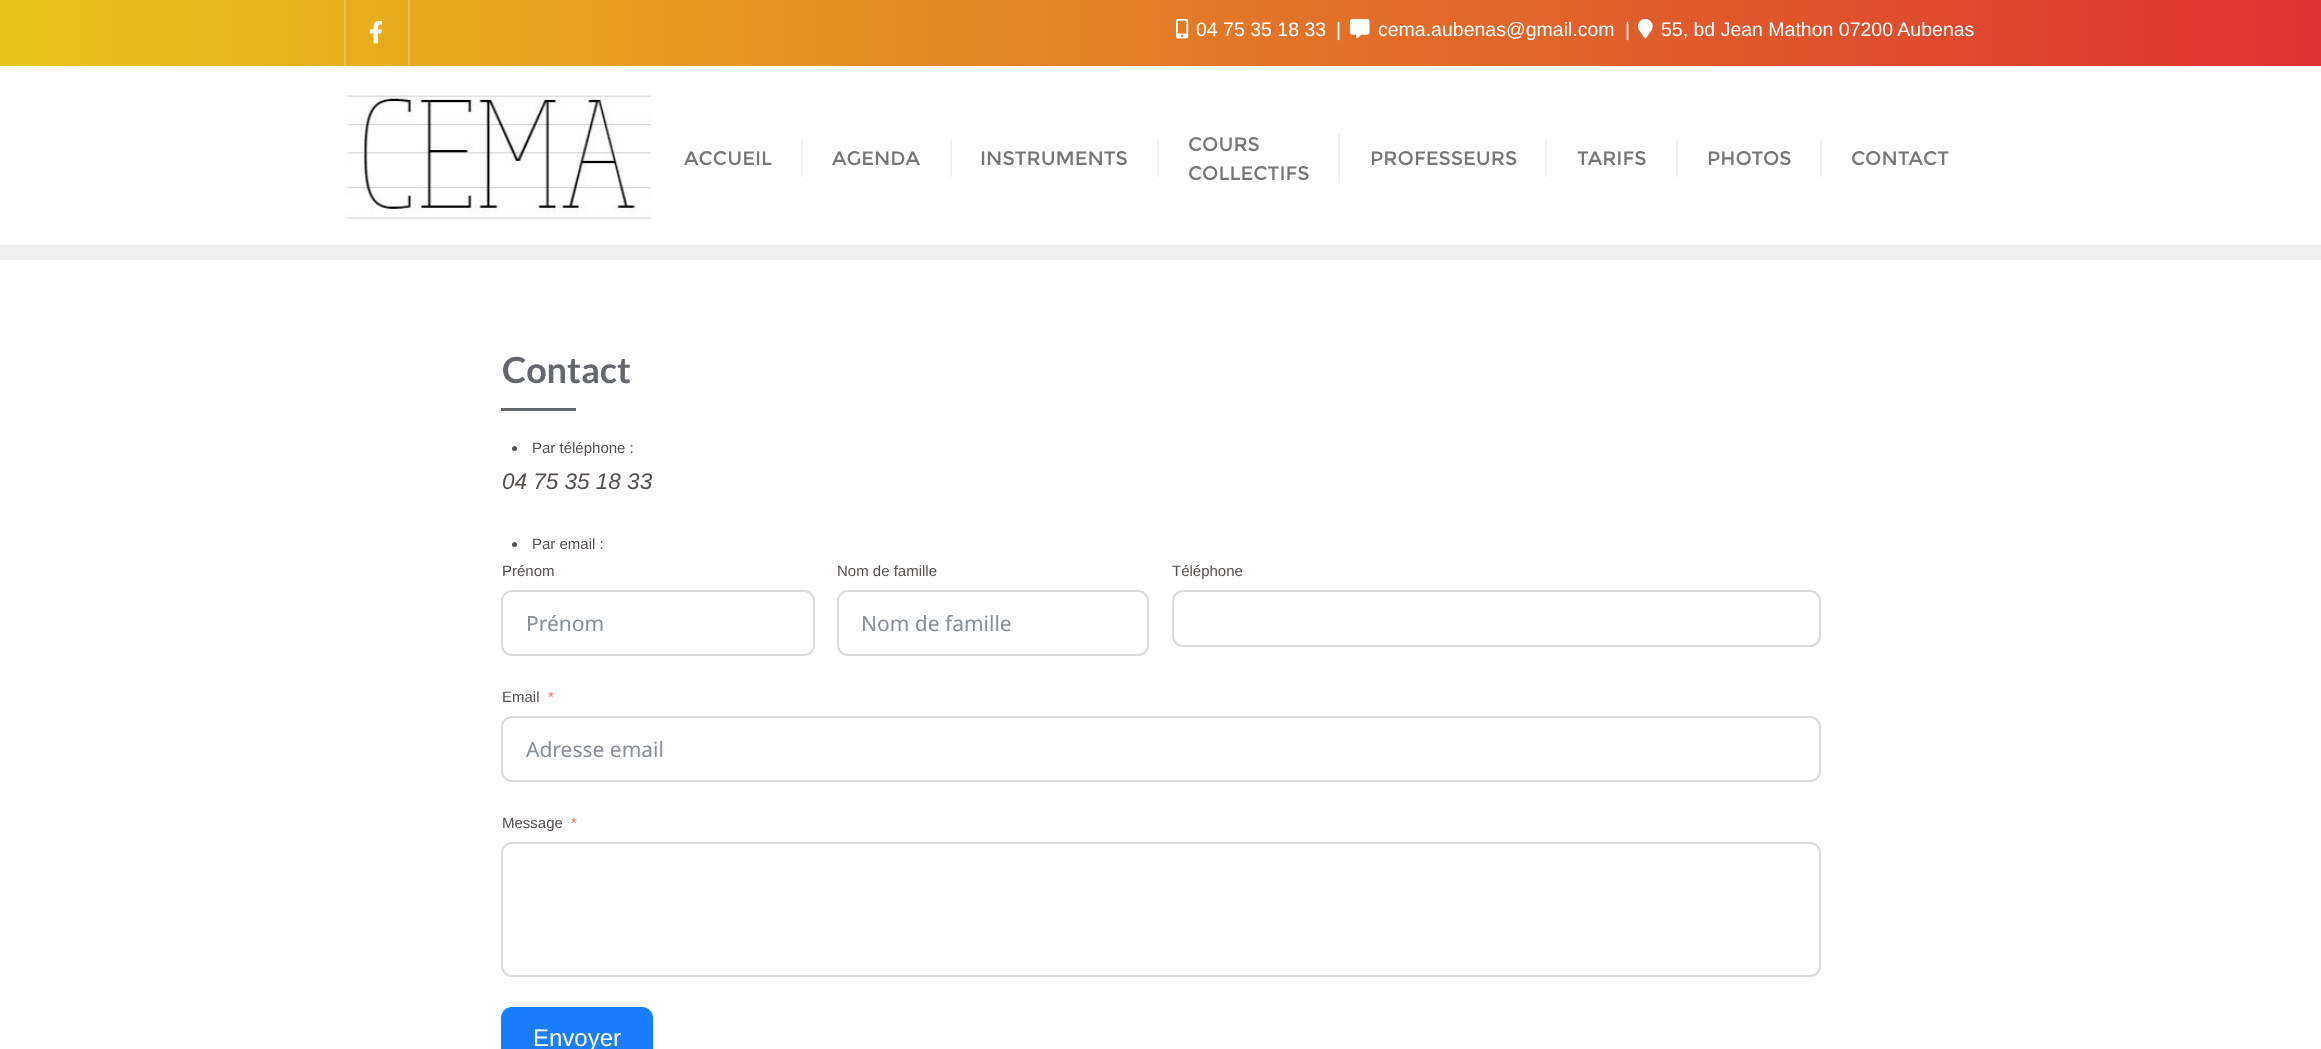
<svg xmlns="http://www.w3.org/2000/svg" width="2321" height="1049">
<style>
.a{font:19.5px Liberation Sans;fill:#fff}
.b{font:19.5px Montserrat;fill:#777}
.c{font:bold 36px Lato;fill:#64686d}
.d{font:15px Liberation Sans;fill:#544f4d}
.e{font:italic 22.5px Liberation Sans;fill:#544f4d}
.f{font:21px Noto Sans;fill:#868e96}
.g{font:15px Liberation Sans;fill:#f56c6c}
.h{font:24px Liberation Sans;fill:#fff}
</style>
<defs>
<linearGradient id="g1" gradientUnits="userSpaceOnUse" x1="0" y1="33" x2="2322" y2="33"><stop offset="0" stop-color="#e8c519"/><stop offset="1" stop-color="#d33"/></linearGradient>
</defs>
<rect width="100%" height="100%" fill="#fff"/>
<path fill="#eee" d="M0 245h2321v15H0z"/>
<path fill="url(#g1)" d="M0 0h2321v66H0z"/>
<path fill="#ecbd50" d="M408 0h2v66H408z"/>
<path fill="#ecc14f" d="M344 0h2v66H344z"/>
<image href="1.png" x="370" y="20" width="13" height="24"/>
<image href="2.png" x="1176" y="18" width="13" height="21"/>
<image href="3.png" x="1350" y="18" width="20" height="21"/>
<image href="4.png" x="1638" y="18" width="15" height="21"/>
<image href="5.png" x="343" y="91" width="310" height="129"/>
<path fill="#f1f1f1" d="M801 140h2v37H801z"/>
<path fill="#f1f1f1" d="M950 140h2v37H950z"/>
<path fill="#f1f1f1" d="M1157 140h2v37H1157z"/>
<path fill="#f1f1f1" d="M1338 134h2v49H1338z"/>
<path fill="#f1f1f1" d="M1545 140h2v37H1545z"/>
<path fill="#f1f1f1" d="M1676 140h2v37H1676z"/>
<path fill="#f1f1f1" d="M1820 140h2v37H1820z"/>
<path fill="#64686d" d="M501 408h75v3H501z"/>
<circle fill="#544f4d" cx="514.5" cy="448.5" r="2.5"/>
<circle fill="#544f4d" cx="514.5" cy="544.5" r="2.5"/>
<rect fill="none" stroke="#dadbdd" stroke-width="2" x="502" y="591" width="312" height="64" rx="10"/>
<rect fill="none" stroke="#dadbdd" stroke-width="2" x="838" y="591" width="310" height="64" rx="10"/>
<rect fill="none" stroke="#dadbdd" stroke-width="2" x="1173" y="591" width="647" height="55" rx="10"/>
<rect fill="none" stroke="#dadbdd" stroke-width="2" x="502" y="717" width="1318" height="64" rx="10"/>
<rect fill="none" stroke="#dadbdd" stroke-width="2" x="502" y="843" width="1318" height="133" rx="10"/>
<rect fill="#1a7efb" x="501" y="1007" width="152" height="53" rx="11"/>
<text class="a" x="1196" y="36">04 75 35 18 33</text>
<text class="a" x="1336" y="36">|</text>
<text class="a" x="1378" y="36">cema.aubenas@gmail.com</text>
<text class="a" x="1625" y="36">|</text>
<text class="a" x="1661" y="36">55, bd Jean Mathon 07200 Aubenas</text>
<text class="b" x="684" y="165">ACCUEIL</text>
<text class="b" x="832" y="165">AGENDA</text>
<text class="b" x="980" y="165">INSTRUMENTS</text>
<text class="b" x="1188" y="151">COURS</text>
<text class="b" x="1188" y="180">COLLECTIFS</text>
<text class="b" x="1370" y="165">PROFESSEURS</text>
<text class="b" x="1577" y="165">TARIFS</text>
<text class="b" x="1707" y="165">PHOTOS</text>
<text class="b" x="1851" y="165">CONTACT</text>
<text class="c" x="502" y="383">Contact</text>
<text class="d" x="532" y="453">Par téléphone :</text>
<text class="e" x="502" y="489">04 75 35 18 33</text>
<text class="d" x="532" y="549">Par email :</text>
<text class="d" x="502" y="576">Prénom</text>
<text class="f" x="526" y="631">Prénom</text>
<text class="d" x="837" y="576">Nom de famille</text>
<text class="f" x="861" y="631">Nom de famille</text>
<text class="d" x="1172" y="576">Téléphone</text>
<text class="d" x="502" y="702">Email</text>
<text class="g" x="548" y="702">*</text>
<text class="f" x="526" y="757">Adresse email</text>
<text class="d" x="502" y="828">Message</text>
<text class="g" x="571" y="828">*</text>
<text class="h" x="533" y="1046">Envoyer</text>
</svg>
